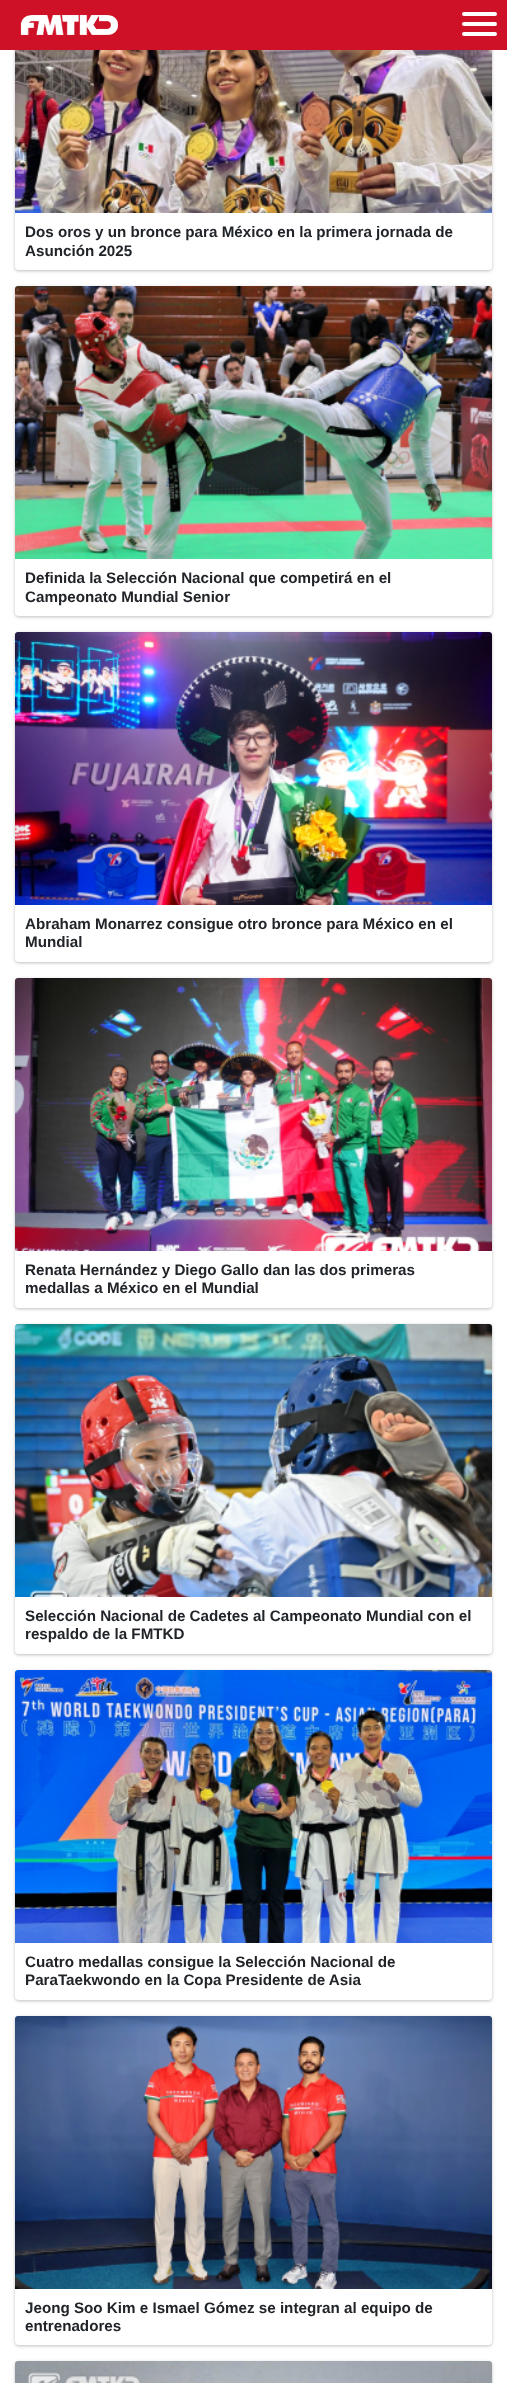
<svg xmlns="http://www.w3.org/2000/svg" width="507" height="2383">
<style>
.a{font:bold 15.2px Liberation Sans;fill:#212529}
</style>
<rect width="100%" height="100%" fill="#fff"/>
<rect fill="#00000021" filter="blur(2px)" x="15" y="-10" width="477" height="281" rx="4"/>
<rect fill="#00000021" filter="blur(1px)" x="15" y="-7" width="477" height="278" rx="4"/>
<rect fill="#fff" x="15" y="-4" width="477" height="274" rx="4"/>
<path fill="#ce1126" d="M0 0h507v50H0z"/>
<image href="1.png" x="20" y="15" width="98" height="20"/>
<rect fill="#fff" x="462" y="22" width="35" height="4" rx="2"/>
<rect fill="#fff" x="462" y="12" width="35" height="4" rx="2"/>
<rect fill="#fff" x="462" y="32" width="35" height="4" rx="2"/>
<image href="2.png" x="15" y="50" width="477" height="163"/>
<rect fill="#00000021" filter="blur(2px)" x="15" y="287" width="477" height="330" rx="4"/>
<rect fill="#00000021" filter="blur(1px)" x="15" y="287" width="477" height="330" rx="4"/>
<rect fill="#fff" x="15" y="286" width="477" height="330" rx="4"/>
<path fill="#fff" d="M15 286h477v3H15z"/>
<image href="3.png" x="15" y="286" width="477" height="273"/>
<rect fill="#00000021" filter="blur(2px)" x="15" y="633" width="477" height="330" rx="4"/>
<rect fill="#00000021" filter="blur(1px)" x="15" y="633" width="477" height="330" rx="4"/>
<rect fill="#fff" x="15" y="632" width="477" height="330" rx="4"/>
<path fill="#fff" d="M15 632h477v3H15z"/>
<image href="4.png" x="15" y="632" width="477" height="273"/>
<rect fill="#00000021" filter="blur(2px)" x="15" y="979" width="477" height="330" rx="4"/>
<rect fill="#00000021" filter="blur(1px)" x="15" y="979" width="477" height="330" rx="4"/>
<rect fill="#fff" x="15" y="978" width="477" height="330" rx="4"/>
<path fill="#fff" d="M15 978h477v3H15z"/>
<image href="5.png" x="15" y="978" width="477" height="273"/>
<rect fill="#00000021" filter="blur(2px)" x="15" y="1325" width="477" height="330" rx="4"/>
<rect fill="#00000021" filter="blur(1px)" x="15" y="1325" width="477" height="330" rx="4"/>
<rect fill="#fff" x="15" y="1324" width="477" height="330" rx="4"/>
<path fill="#fff" d="M15 1324h477v3H15z"/>
<image href="6.png" x="15" y="1324" width="477" height="273"/>
<rect fill="#00000021" filter="blur(2px)" x="15" y="1671" width="477" height="330" rx="4"/>
<rect fill="#00000021" filter="blur(1px)" x="15" y="1671" width="477" height="330" rx="4"/>
<rect fill="#fff" x="15" y="1670" width="477" height="330" rx="4"/>
<path fill="#fff" d="M15 1670h477v3H15z"/>
<image href="7.png" x="15" y="1670" width="477" height="273"/>
<rect fill="#00000021" filter="blur(2px)" x="15" y="2017" width="477" height="329" rx="4"/>
<rect fill="#00000021" filter="blur(1px)" x="15" y="2017" width="477" height="329" rx="4"/>
<rect fill="#fff" x="15" y="2016" width="477" height="329" rx="4"/>
<path fill="#fff" d="M15 2016h477v3H15z"/>
<image href="8.png" x="15" y="2016" width="477" height="273"/>
<rect fill="#00000021" filter="blur(2px)" x="15" y="2362" width="477" height="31" rx="4"/>
<rect fill="#00000021" filter="blur(1px)" x="15" y="2362" width="477" height="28" rx="4"/>
<path fill="#fff" d="M15 2361h477v3H15z"/>
<image href="9.png" x="15" y="2361" width="477" height="22"/>
<text class="a" x="25" y="237">Dos oros y un bronce para México en la primera jornada de</text>
<text class="a" x="25" y="256">Asunción 2025</text>
<text class="a" x="25" y="583">Definida la Selección Nacional que competirá en el</text>
<text class="a" x="25" y="602">Campeonato Mundial Senior</text>
<text class="a" x="25" y="929">Abraham Monarrez consigue otro bronce para México en el</text>
<text class="a" x="25" y="947">Mundial</text>
<text class="a" x="25" y="1275">Renata Hernández y Diego Gallo dan las dos primeras</text>
<text class="a" x="25" y="1293">medallas a México en el Mundial</text>
<text class="a" x="25" y="1621">Selección Nacional de Cadetes al Campeonato Mundial con el</text>
<text class="a" x="25" y="1639">respaldo de la FMTKD</text>
<text class="a" x="25" y="1967">Cuatro medallas consigue la Selección Nacional de</text>
<text class="a" x="25" y="1985">ParaTaekwondo en la Copa Presidente de Asia</text>
<text class="a" x="25" y="2313">Jeong Soo Kim e Ismael Gómez se integran al equipo de</text>
<text class="a" x="25" y="2331">entrenadores</text>
</svg>
